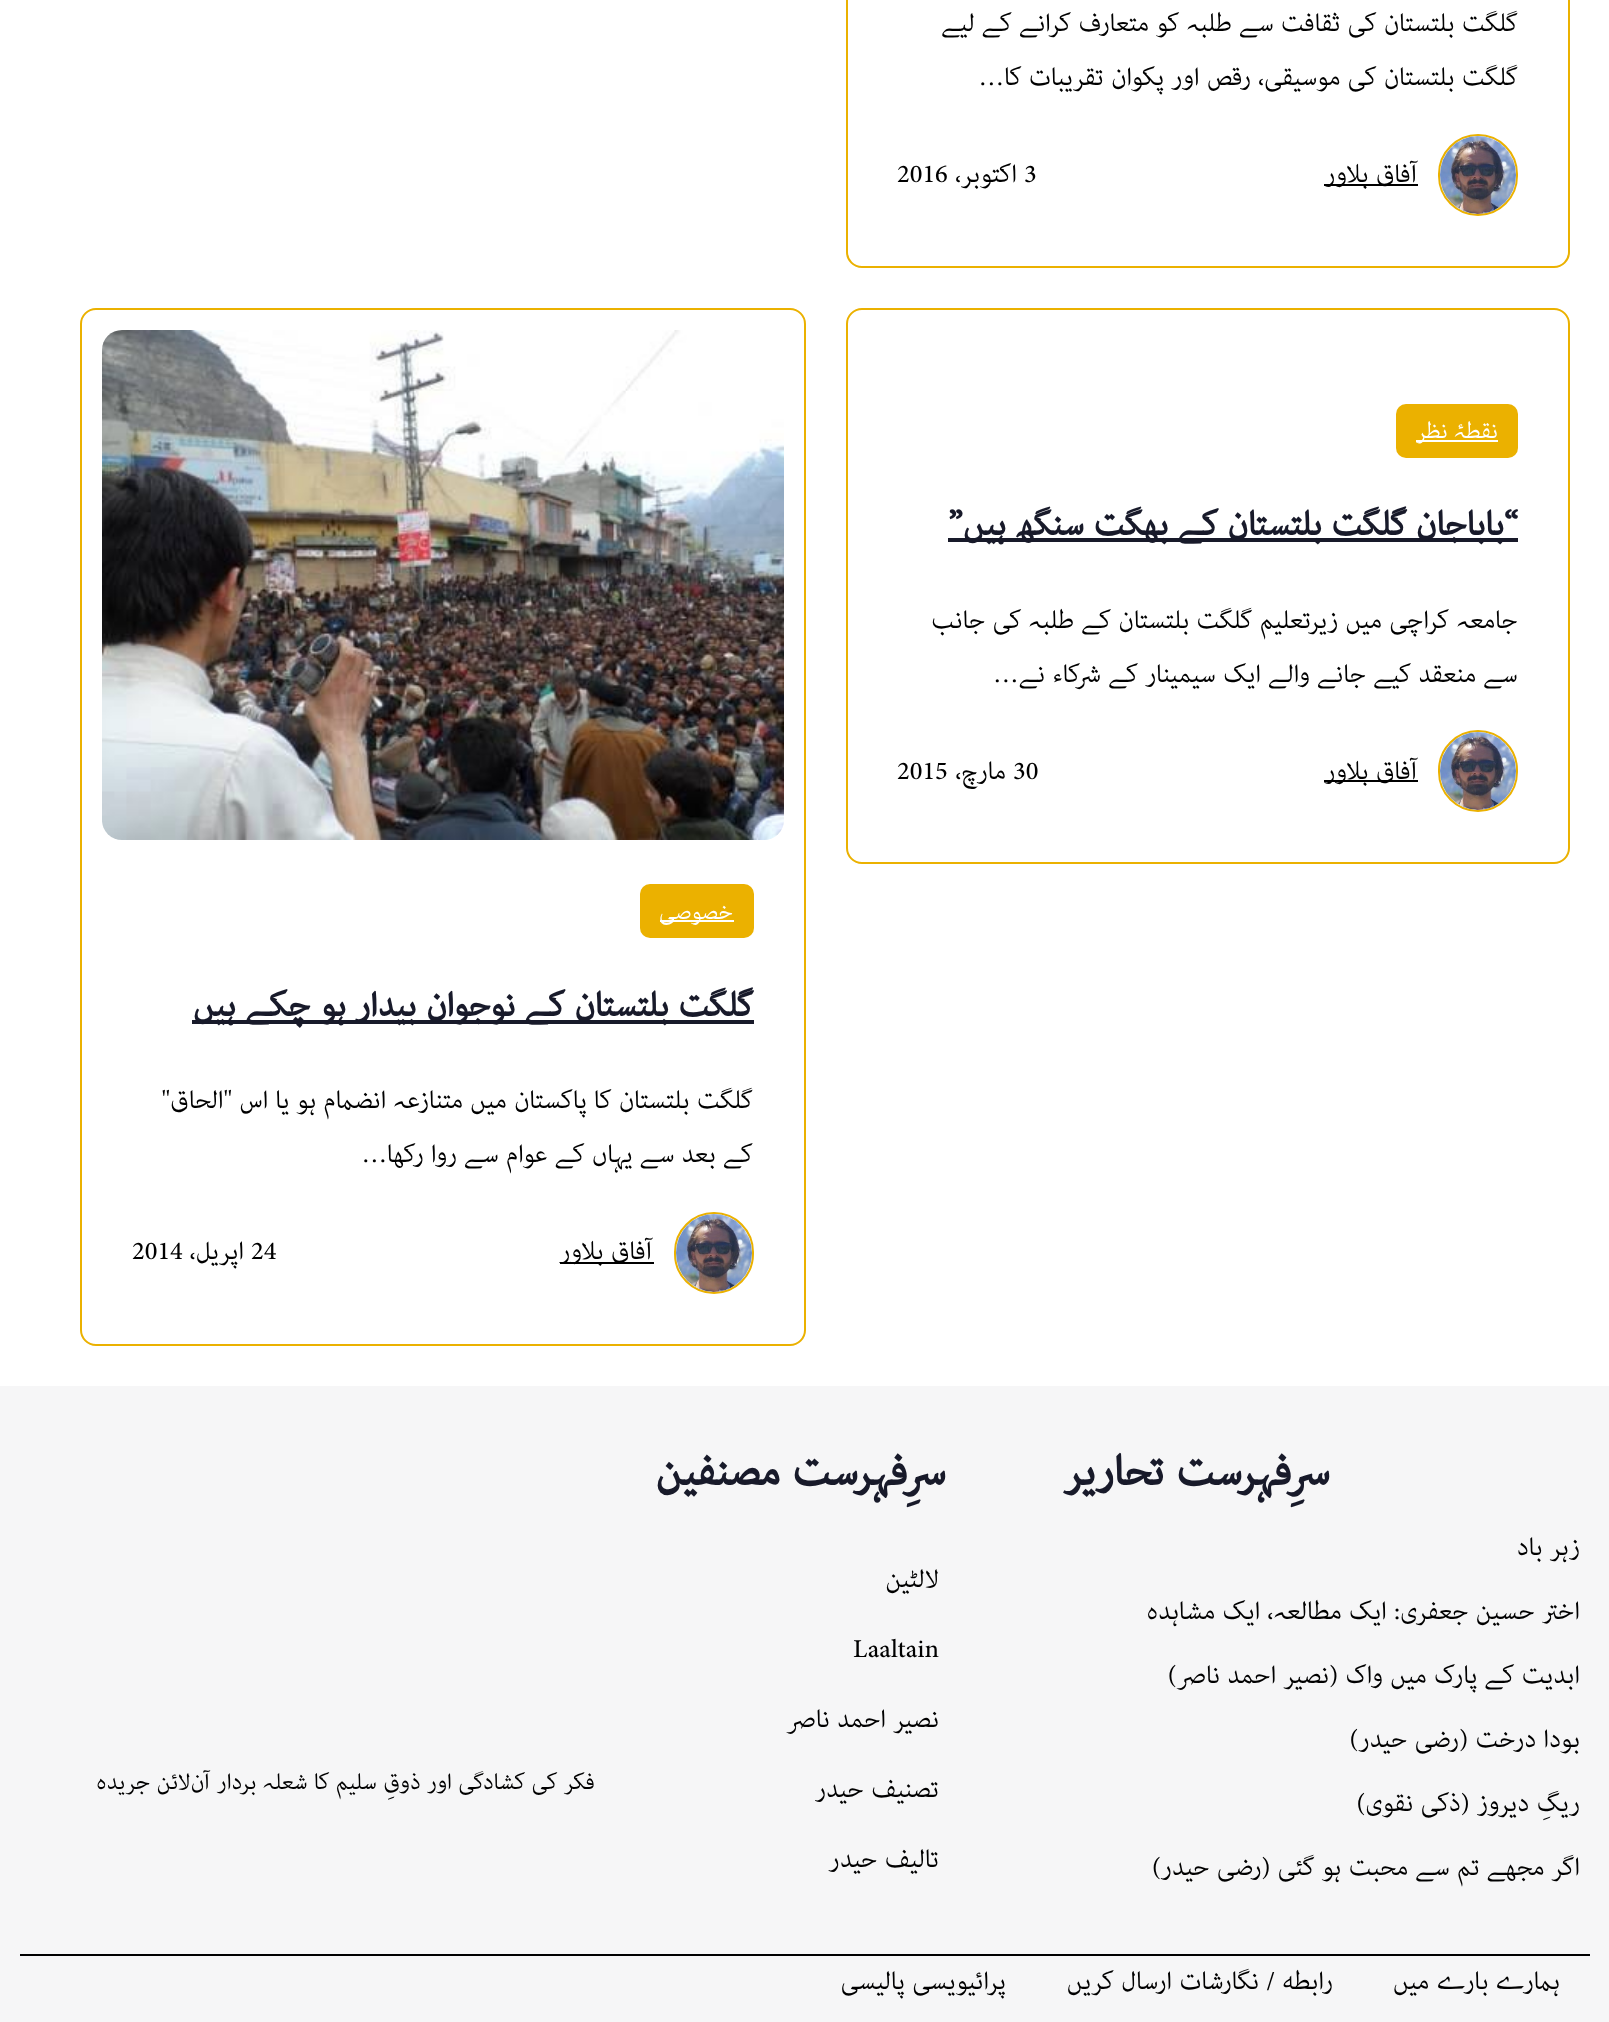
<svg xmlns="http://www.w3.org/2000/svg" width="1609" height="2022">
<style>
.a{font:36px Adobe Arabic;direction:rtl;fill:#000}
.b{font:36px Adobe Arabic;fill:#000}
.c{font:32px Adobe Arabic;direction:rtl;fill:#fff}
.d{font:bold 48px Adobe Arabic;direction:rtl;fill:#181a2a}
.e{font:bold 60px Adobe Arabic;direction:rtl;fill:#181a2a}
.f{font:32px Adobe Arabic;direction:rtl;fill:#000}
</style>
<rect width="100%" height="100%" fill="#fff"/>
<rect fill="none" stroke="#ebb100" stroke-width="2" x="847" y="-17" width="722" height="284" rx="15"/>
<rect fill="none" stroke="#ebb100" stroke-width="2" x="1439" y="135" width="78" height="80" rx="39"/>
<image href="1.png" x="1440" y="136" width="76" height="78"/>
<path fill="#000" d="M1324 184h94v2H1324z"/>
<rect fill="none" stroke="#ebb100" stroke-width="2" x="847" y="309" width="722" height="554" rx="15"/>
<rect fill="#ebb100" x="1396" y="404" width="122" height="54" rx="10"/>
<path fill="#fff" d="M1416 440h82v2H1416z"/>
<path fill="#181a2a" d="M948 538h570v4H948z"/>
<rect fill="none" stroke="#ebb100" stroke-width="2" x="1439" y="731" width="78" height="80" rx="39"/>
<image href="2.png" x="1440" y="732" width="76" height="78"/>
<path fill="#000" d="M1324 780h94v2H1324z"/>
<rect fill="none" stroke="#ebb100" stroke-width="2" x="81" y="309" width="724" height="1036" rx="15"/>
<image href="3.png" x="102" y="330" width="682" height="510"/>
<rect fill="#ebb100" x="640" y="884" width="114" height="54" rx="10"/>
<path fill="#fff" d="M660 920h74v2H660z"/>
<path fill="#181a2a" d="M192 1020h562v4H192z"/>
<rect fill="none" stroke="#ebb100" stroke-width="2" x="675" y="1213" width="78" height="80" rx="39"/>
<image href="4.png" x="676" y="1214" width="76" height="78"/>
<path fill="#000" d="M560 1262h94v2H560z"/>
<path fill="#f6f6f7" d="M0 1386h1609v636H0z"/>
<path fill="#000" d="M20 1954h1570v2H20z"/>
<text class="a" x="1518" y="31">گلگت بلتستان کی ثقافت سے طلبہ کو متعارف کرانے کے لیے</text>
<text class="a" x="1518" y="85">گلگت بلتستان کی موسیقی، رقص اور پکوان تقریبات کا…</text>
<text class="a" x="1418" y="182">آفاق بلاور</text>
<text class="b" x="1024" y="182">3</text>
<text class="a" x="1017" y="182">اکتوبر،</text>
<text class="b" x="897" y="182">2016</text>
<text class="c" x="1498" y="438">نقطۂ نظر</text>
<text class="d" x="1518" y="535">“باباجان گلگت بلتستان کے بھگت سنگھ ہیں”</text>
<text class="a" x="1518" y="628">جامعہ کراچی میں زیرتعلیم گلگت بلتستان کے طلبہ کی جانب</text>
<text class="a" x="1518" y="682">سے منعقد کیے جانے والے ایک سیمینار کے شرکاء نے…</text>
<text class="a" x="1418" y="779">آفاق بلاور</text>
<text class="b" x="1013" y="779">30</text>
<text class="a" x="1006" y="779">مارچ،</text>
<text class="b" x="897" y="779">2015</text>
<text class="c" x="733" y="919">خصوصی</text>
<text class="d" x="753" y="1016">گلگت بلتستان کے نوجوان بیدار ہو چکے ہیں</text>
<text class="a" x="753" y="1108">گلگت بلتستان کا پاکستان میں متنازعہ انضمام ہو یا اس "الحاق"</text>
<text class="a" x="753" y="1162">کے بعد سے یہاں کے عوام سے روا رکھا…</text>
<text class="a" x="653" y="1259">آفاق بلاور</text>
<text class="b" x="251" y="1259">24</text>
<text class="a" x="244" y="1259">اپریل،</text>
<text class="b" x="132" y="1259">2014</text>
<text class="e" x="1330" y="1485">سرِفہرست تحاریر</text>
<text class="a" x="1580" y="1555">زہر باد</text>
<text class="a" x="1580" y="1619">اختر حسین جعفری: ایک مطالعہ، ایک مشاہدہ</text>
<text class="a" x="1580" y="1683">ابدیت کے پارک میں واک (نصیر احمد ناصر)</text>
<text class="a" x="1580" y="1747">بودا درخت (رضی حیدر)</text>
<text class="a" x="1580" y="1811">ریگِ دیروز (ذکی نقوی)</text>
<text class="a" x="1580" y="1875">اگر مجھے تم سے محبت ہو گئی (رضی حیدر)</text>
<text class="e" x="946" y="1485">سرِفہرست مصنفین</text>
<text class="a" x="939" y="1587">لالٹین</text>
<text class="b" x="853" y="1657">Laaltain</text>
<text class="a" x="939" y="1727">نصیر احمد ناصر</text>
<text class="a" x="939" y="1797">تصنیف حیدر</text>
<text class="a" x="939" y="1867">تالیف حیدر</text>
<text class="f" x="595" y="1789">فکر کی کشادگی اور ذوقِ سلیم کا شعلہ بردار آن‌لائن جریدہ</text>
<text class="a" x="1560" y="1989">ہمارے بارے میں</text>
<text class="a" x="1333" y="1989">رابطه / نگارشات ارسال کریں</text>
<text class="a" x="1006" y="1989">پرائیویسی پالیسی</text>
</svg>
